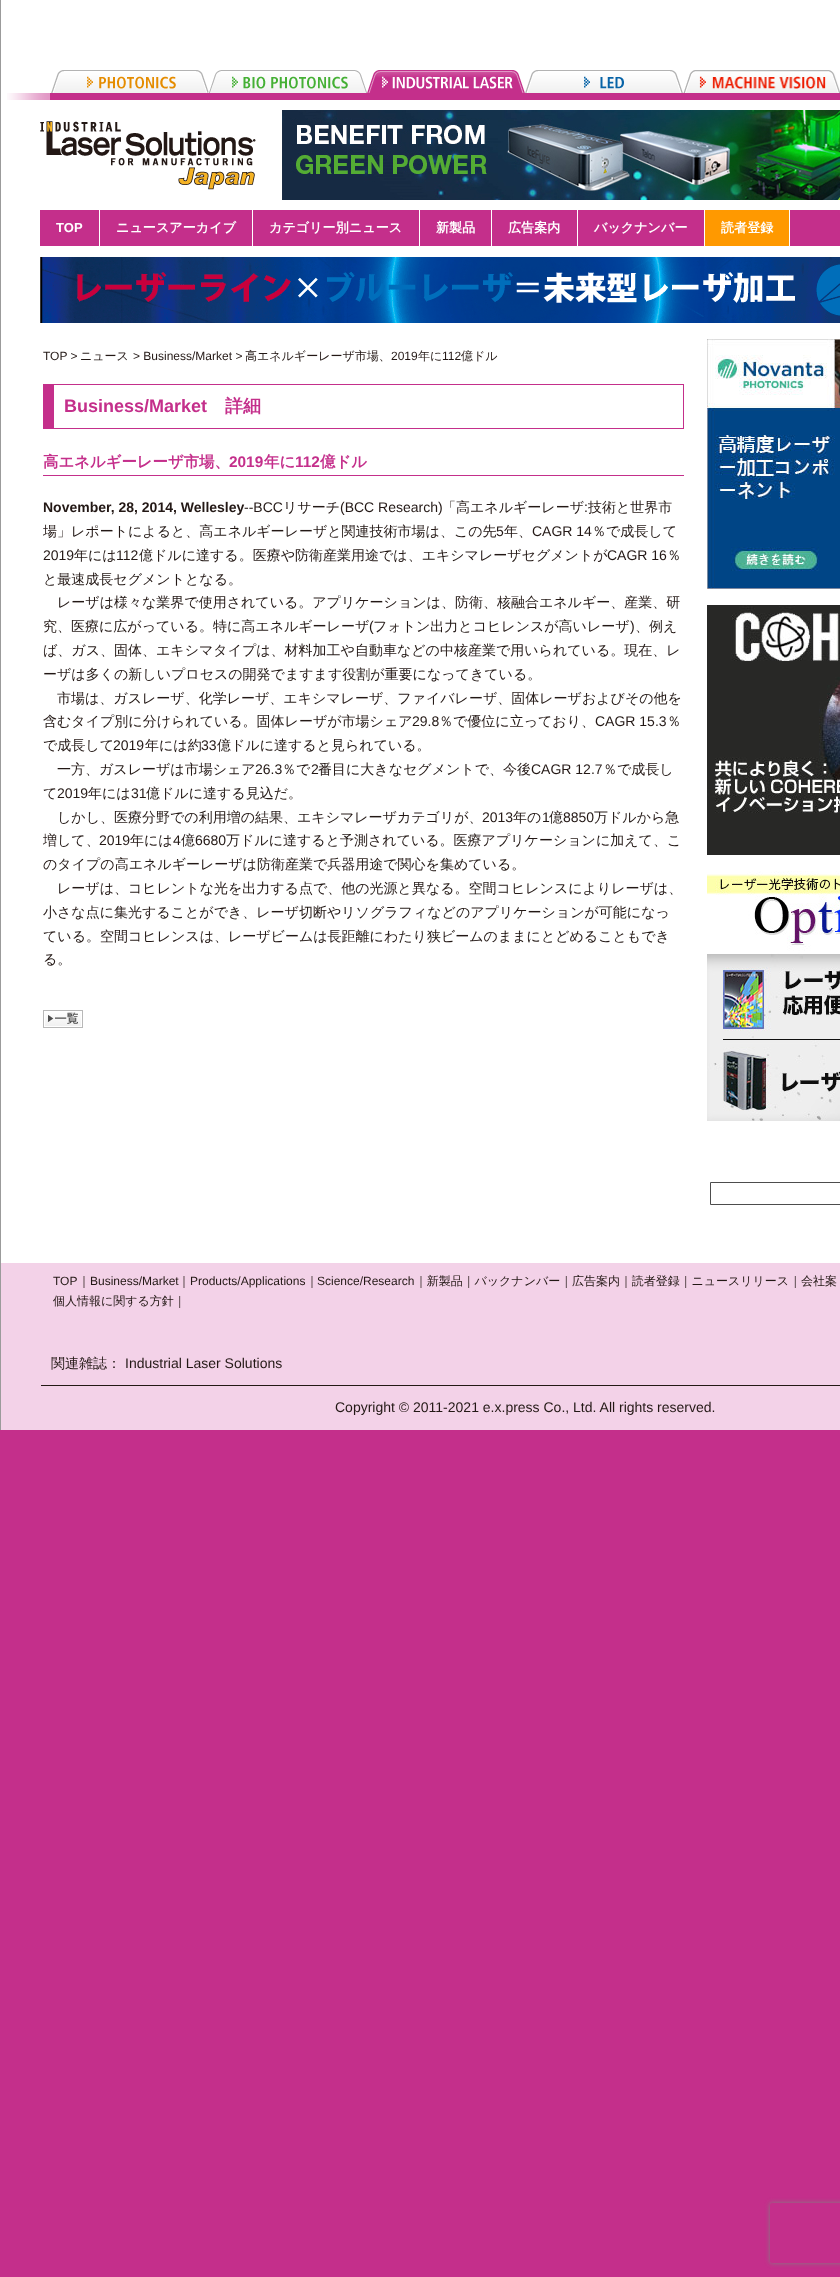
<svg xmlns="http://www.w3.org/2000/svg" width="840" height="2277">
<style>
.a{font:bold 13px Liberation Sans;letter-spacing:0.1px;fill:#fff}
.b{font:bold 13px WenQuanYi Zen Hei;letter-spacing:0.1px;fill:#fff}
.c{font:12px Liberation Sans;fill:#231815}
.d{font:500 12px WenQuanYi Zen Hei;fill:#231815}
.e{font:bold 18px Liberation Sans;fill:#c42f8b}
.f{font:bold 18px WenQuanYi Zen Hei;fill:#c42f8b}
.g{font:bold 15.4px WenQuanYi Zen Hei;fill:#c42f8b}
.h{font:bold 15.4px Liberation Sans;fill:#c42f8b}
.i{font:bold 14px Liberation Sans;fill:#231815}
.j{font:14px Liberation Sans;fill:#231815}
.k{font:500 14px WenQuanYi Zen Hei;fill:#231815}
</style>
<defs>
<clipPath id="clip1"><path d="M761 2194h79v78h-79zm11 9h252c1 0 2 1 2 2v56c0 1-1 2-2 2h-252c-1 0-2-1-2-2v-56c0-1 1-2 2-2z" clip-rule="evenodd"/></clipPath>
</defs>
<rect width="100%" height="100%" fill="#c42f8b"/>
<path fill="#fff" d="M1 0h839v1263H1z"/>
<path fill="#9b9b9b" d="M0 0h1v1430H0z"/>
<image href="1.png" x="7" y="93" width="833" height="7"/>
<image href="2.png" x="51" y="70" width="158" height="23"/>
<image href="3.png" x="209" y="70" width="158" height="23"/>
<image href="4.png" x="367" y="70" width="158" height="23"/>
<image href="5.png" x="525" y="70" width="158" height="23"/>
<image href="6.png" x="683" y="70" width="157" height="23"/>
<image href="7.png" x="40" y="121" width="216" height="69"/>
<image href="8.png" x="282" y="110" width="558" height="90"/>
<path fill="#c42f8b" d="M40 210h800v36H40z"/>
<path fill="#fff" d="M99 210h1v36H99z"/>
<path fill="#fff" d="M252 210h1v36H252z"/>
<path fill="#fff" d="M419 210h1v36H419z"/>
<path fill="#fff" d="M491 210h1v36H491z"/>
<path fill="#fff" d="M577 210h1v36H577z"/>
<path fill="#fff" d="M704 210h1v36H704z"/>
<path fill="#f90" d="M705 210h84v36H705z"/>
<path fill="#fff" d="M789 210h1v36H789z"/>
<image href="9.png" x="40" y="257" width="800" height="66"/>
<path fill="#c42f8b" d="M54 384h630v1H54z"/>
<path fill="#c42f8b" d="M683 384h1v45H683z"/>
<path fill="#c42f8b" d="M54 428h630v1H54z"/>
<path fill="#c42f8b" d="M43 384h11v45H43z"/>
<path fill="#c42f8b" d="M43 475h641v1H43z"/>
<image href="10.png" x="43" y="1010" width="40" height="18"/>
<image href="11.png" x="707" y="339" width="133" height="250"/>
<image href="12.png" x="707" y="605" width="133" height="250"/>
<image href="13.png" x="707" y="871" width="133" height="250"/>
<path fill="none" stroke="#4d4d4d" d="M710.5 1182.5h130v22H710.5z"/>
<path fill="#f3d2e8" d="M1 1263h839v167H1z"/>
<path fill="#231815" d="M41 1385h799v1H41z"/>
<g clip-path="url(#clip1)">
<rect fill="#808080" filter="blur(2.5px)" x="770" y="2203" width="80" height="60" rx="2"/>
</g>
<text class="a" x="56" y="232">TOP</text>
<text class="b" x="116" y="232">ニュースアーカイブ</text>
<text class="b" x="269" y="232">カテゴリー別ニュース</text>
<text class="b" x="436" y="232">新製品</text>
<text class="b" x="508" y="232">広告案内</text>
<text class="b" x="594" y="232">バックナンバー</text>
<text class="b" x="721" y="232">読者登録</text>
<text class="c" x="43" y="360">TOP &gt;</text>
<text class="d" x="80" y="360">ニュース</text>
<text class="c" x="133" y="360">&gt; Business/Market &gt;</text>
<text class="d" x="245" y="360">高エネルギーレーザ市場、</text>
<text class="c" x="391" y="360">2019</text>
<text class="d" x="418" y="360">年に</text>
<text class="c" x="442" y="360">112</text>
<text class="d" x="461" y="360">億ドル</text>
<text class="e" x="64" y="412">Business/Market</text>
<text class="f" x="225" y="412">詳細</text>
<text class="g" x="43" y="467">高エネルギーレーザ市場、</text>
<text class="h" x="229" y="467">2019</text>
<text class="g" x="264" y="467">年に</text>
<text class="h" x="295" y="467">112</text>
<text class="g" x="320" y="467">億ドル</text>
<text class="i" x="43" y="512">November, 28, 2014, Wellesley</text>
<text class="j" x="244" y="512">--BCC</text>
<text class="k" x="283" y="512">リサーチ</text>
<text class="j" x="340" y="512">(BCC Research)</text>
<text class="k" x="442" y="512">「高エネルギーレーザ</text>
<text class="j" x="584" y="512">:</text>
<text class="k" x="588" y="512">技術と世界市</text>
<text class="k" x="43" y="536">場」レポートによると、高エネルギーレーザと関連技術市場は、この先</text>
<text class="j" x="496" y="536">5</text>
<text class="k" x="504" y="536">年、</text>
<text class="j" x="532" y="536">CAGR 14</text>
<text class="k" x="592" y="536">％で成長して</text>
<text class="j" x="43" y="560">2019</text>
<text class="k" x="74" y="560">年には</text>
<text class="j" x="116" y="560">112</text>
<text class="k" x="139" y="560">億ドルに達する。医療や防衛産業用途では、エキシマレーザセグメントが</text>
<text class="j" x="607" y="560">CAGR 16</text>
<text class="k" x="667" y="560">％</text>
<text class="k" x="43" y="584">と最速成長セグメントとなる。</text>
<text class="k" x="57" y="607">レーザは様々な業界で使用されている。アプリケーションは、防衛、核融合エネルギー、産業、研</text>
<text class="k" x="43" y="631">究、医療に広がっている。特に高エネルギーレーザ</text>
<text class="j" x="369" y="631">(</text>
<text class="k" x="373" y="631">フォトン出力とコヒレンスが高いレーザ</text>
<text class="j" x="630" y="631">)</text>
<text class="k" x="635" y="631">、例え</text>
<text class="k" x="43" y="655">ば、ガス、固体、エキシマタイプは、材料加工や自動車などの中核産業で用いられている。現在、レ</text>
<text class="k" x="43" y="679">ーザは多くの新しいプロセスの開発でますます役割が重要になってきている。</text>
<text class="k" x="57" y="703">市場は、ガスレーザ、化学レーザ、エキシマレーザ、ファイバレーザ、固体レーザおよびその他を</text>
<text class="k" x="43" y="726">含むタイプ別に分けられている。固体レーザが市場シェア</text>
<text class="j" x="412" y="726">29.8</text>
<text class="k" x="439" y="726">％で優位に立っており、</text>
<text class="j" x="595" y="726">CAGR 15.3</text>
<text class="k" x="667" y="726">％</text>
<text class="k" x="43" y="750">で成長して</text>
<text class="j" x="113" y="750">2019</text>
<text class="k" x="145" y="750">年には約</text>
<text class="j" x="201" y="750">33</text>
<text class="k" x="217" y="750">億ドルに達すると見られている。</text>
<text class="k" x="57" y="774">一方、ガスレーザは市場シェア</text>
<text class="j" x="255" y="774">26.3</text>
<text class="k" x="282" y="774">％で</text>
<text class="j" x="311" y="774">2</text>
<text class="k" x="318" y="774">番目に大きなセグメントで、今後</text>
<text class="j" x="531" y="774">CAGR 12.7</text>
<text class="k" x="603" y="774">％で成長し</text>
<text class="k" x="43" y="798">て</text>
<text class="j" x="57" y="798">2019</text>
<text class="k" x="88" y="798">年には</text>
<text class="j" x="131" y="798">31</text>
<text class="k" x="146" y="798">億ドルに達する見込だ。</text>
<text class="k" x="57" y="822">しかし、医療分野での利用増の結果、エキシマレーザカテゴリが、</text>
<text class="j" x="482" y="822">2013</text>
<text class="k" x="513" y="822">年の</text>
<text class="j" x="542" y="822">1</text>
<text class="k" x="549" y="822">億</text>
<text class="j" x="563" y="822">8850</text>
<text class="k" x="594" y="822">万ドルから急</text>
<text class="k" x="43" y="845">増して、</text>
<text class="j" x="99" y="845">2019</text>
<text class="k" x="130" y="845">年には</text>
<text class="j" x="173" y="845">4</text>
<text class="k" x="181" y="845">億</text>
<text class="j" x="195" y="845">6680</text>
<text class="k" x="226" y="845">万ドルに達すると予測されている。医療アプリケーションに加えて、こ</text>
<text class="k" x="43" y="869">のタイプの高エネルギーレーザは防衛産業で兵器用途で関心を集めている。</text>
<text class="k" x="57" y="893">レーザは、コヒレントな光を出力する点で、他の光源と異なる。空間コヒレンスによりレーザは、</text>
<text class="k" x="43" y="917">小さな点に集光することができ、レーザ切断やリソグラフィなどのアプリケーションが可能になっ</text>
<text class="k" x="43" y="941">ている。空間コヒレンスは、レーザビームは長距離にわたり狭ビームのままにとどめることもでき</text>
<text class="k" x="43" y="964">る。</text>
<text class="c" x="53" y="1285">TOP</text>
<text class="d" x="78" y="1285">｜</text>
<text class="c" x="90" y="1285">Business/Market</text>
<text class="d" x="178" y="1285">｜</text>
<text class="c" x="190" y="1285">Products/Applications</text>
<text class="d" x="306" y="1285">｜</text>
<text class="c" x="317" y="1285">Science/Research</text>
<text class="d" x="415" y="1285">｜新製品｜バックナンバー｜広告案内｜読者登録｜ニュースリリース｜会社案</text>
<text class="d" x="53" y="1305">個人情報に関する方針｜</text>
<text class="k" x="51" y="1368">関連雑誌：</text>
<text class="j" x="125" y="1368">Industrial Laser Solutions</text>
<text class="j" x="335" y="1412">Copyright © 2011-2021 e.x.press Co., Ltd. All rights reserved.</text>
</svg>
